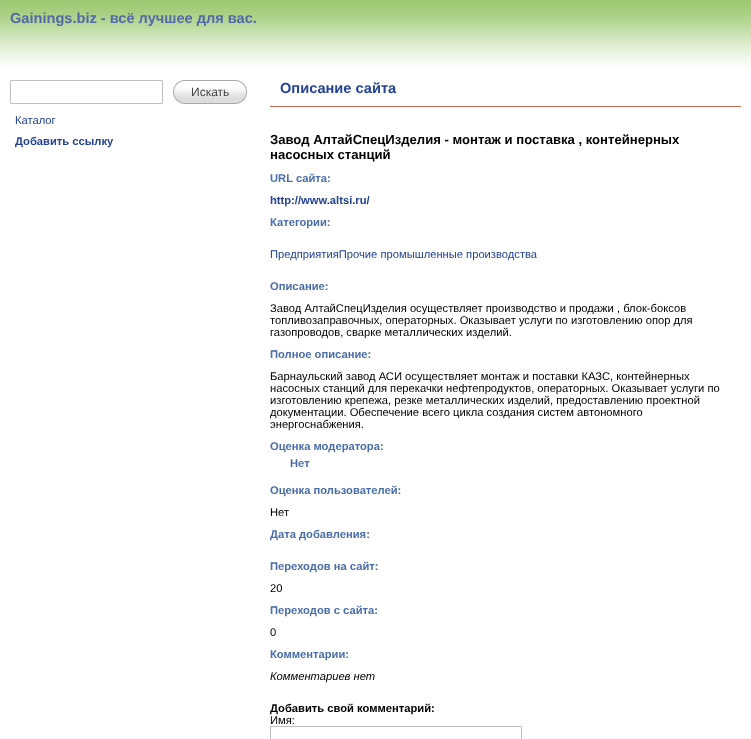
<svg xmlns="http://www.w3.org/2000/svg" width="751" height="739">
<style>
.a{font:bold 14.6px Liberation Sans;fill:#5268a7}
.b{font:12px Liberation Sans;fill:#444}
.c{font:11.2px Liberation Sans;fill:#244296}
.d{font:bold 11.2px Liberation Sans;fill:#244296}
.e{font:bold 14.6px Liberation Sans;fill:#244296}
.f{font:bold 13.1px Liberation Sans;fill:#000}
.g{font:bold 11.2px Liberation Sans;fill:#496dab}
.h{font:11.2px Liberation Sans;fill:#000}
.i{font:italic 11.2px Liberation Sans;fill:#000}
.j{font:bold 11.2px Liberation Sans;fill:#000}
</style>
<rect width="100%" height="100%" fill="#fff"/>
<image href="1.png" x="0" y="0" width="751" height="67"/>
<path fill="none" stroke="#c0c0c0" d="M10.5 80.5h152v23H10.5z"/>
<image href="2.png" x="229" y="80" width="18" height="24"/>
<image href="3.png" x="173" y="80" width="56" height="24"/>
<path fill="#cf6650" d="M270 106h471v1H270z"/>
<path fill="none" stroke="#c0c0c0" d="M270.5 726.5h251v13H270.5z"/>
<text class="a" x="10" y="23">Gainings.biz - всё лучшее для вас.</text>
<text class="b" x="191" y="96">Искать</text>
<text class="c" x="15" y="124">Каталог</text>
<text class="d" x="15" y="145">Добавить ссылку</text>
<text class="e" x="280" y="93">Описание сайта</text>
<text class="f" x="270" y="144">Завод АлтайСпецИзделия - монтаж и поставка , контейнерных</text>
<text class="f" x="270" y="159">насосных станций</text>
<text class="g" x="270" y="182">URL сайта:</text>
<text class="d" x="270" y="204">http://www.altsi.ru/</text>
<text class="g" x="270" y="226">Категории:</text>
<text class="c" x="270" y="258">ПредприятияПрочие промышленные производства</text>
<text class="g" x="270" y="290">Описание:</text>
<text class="h" x="270" y="312">Завод АлтайСпецИзделия осуществляет производство и продажи , блок-боксов</text>
<text class="h" x="270" y="324">топливозаправочных, операторных. Оказывает услуги по изготовлению опор для</text>
<text class="h" x="270" y="336">газопроводов, сварке металлических изделий.</text>
<text class="g" x="270" y="358">Полное описание:</text>
<text class="h" x="270" y="380">Барнаульский завод АСИ осуществляет монтаж и поставки КАЗС, контейнерных</text>
<text class="h" x="270" y="392">насосных станций для перекачки нефтепродуктов, операторных. Оказывает услуги по</text>
<text class="h" x="270" y="404">изготовлению крепежа, резке металлических изделий, предоставлению проектной</text>
<text class="h" x="270" y="416">документации. Обеспечение всего цикла создания систем автономного</text>
<text class="h" x="270" y="428">энергоснабжения.</text>
<text class="g" x="270" y="450">Оценка модератора:</text>
<text class="g" x="290" y="467">Нет</text>
<text class="g" x="270" y="494">Оценка пользователей:</text>
<text class="h" x="270" y="516">Нет</text>
<text class="g" x="270" y="538">Дата добавления:</text>
<text class="g" x="270" y="570">Переходов на сайт:</text>
<text class="h" x="270" y="592">20</text>
<text class="g" x="270" y="614">Переходов с сайта:</text>
<text class="h" x="270" y="636">0</text>
<text class="g" x="270" y="658">Комментарии:</text>
<text class="i" x="270" y="680">Комментариев нет</text>
<text class="j" x="270" y="712">Добавить свой комментарий:</text>
<text class="h" x="270" y="724">Имя:</text>
</svg>
